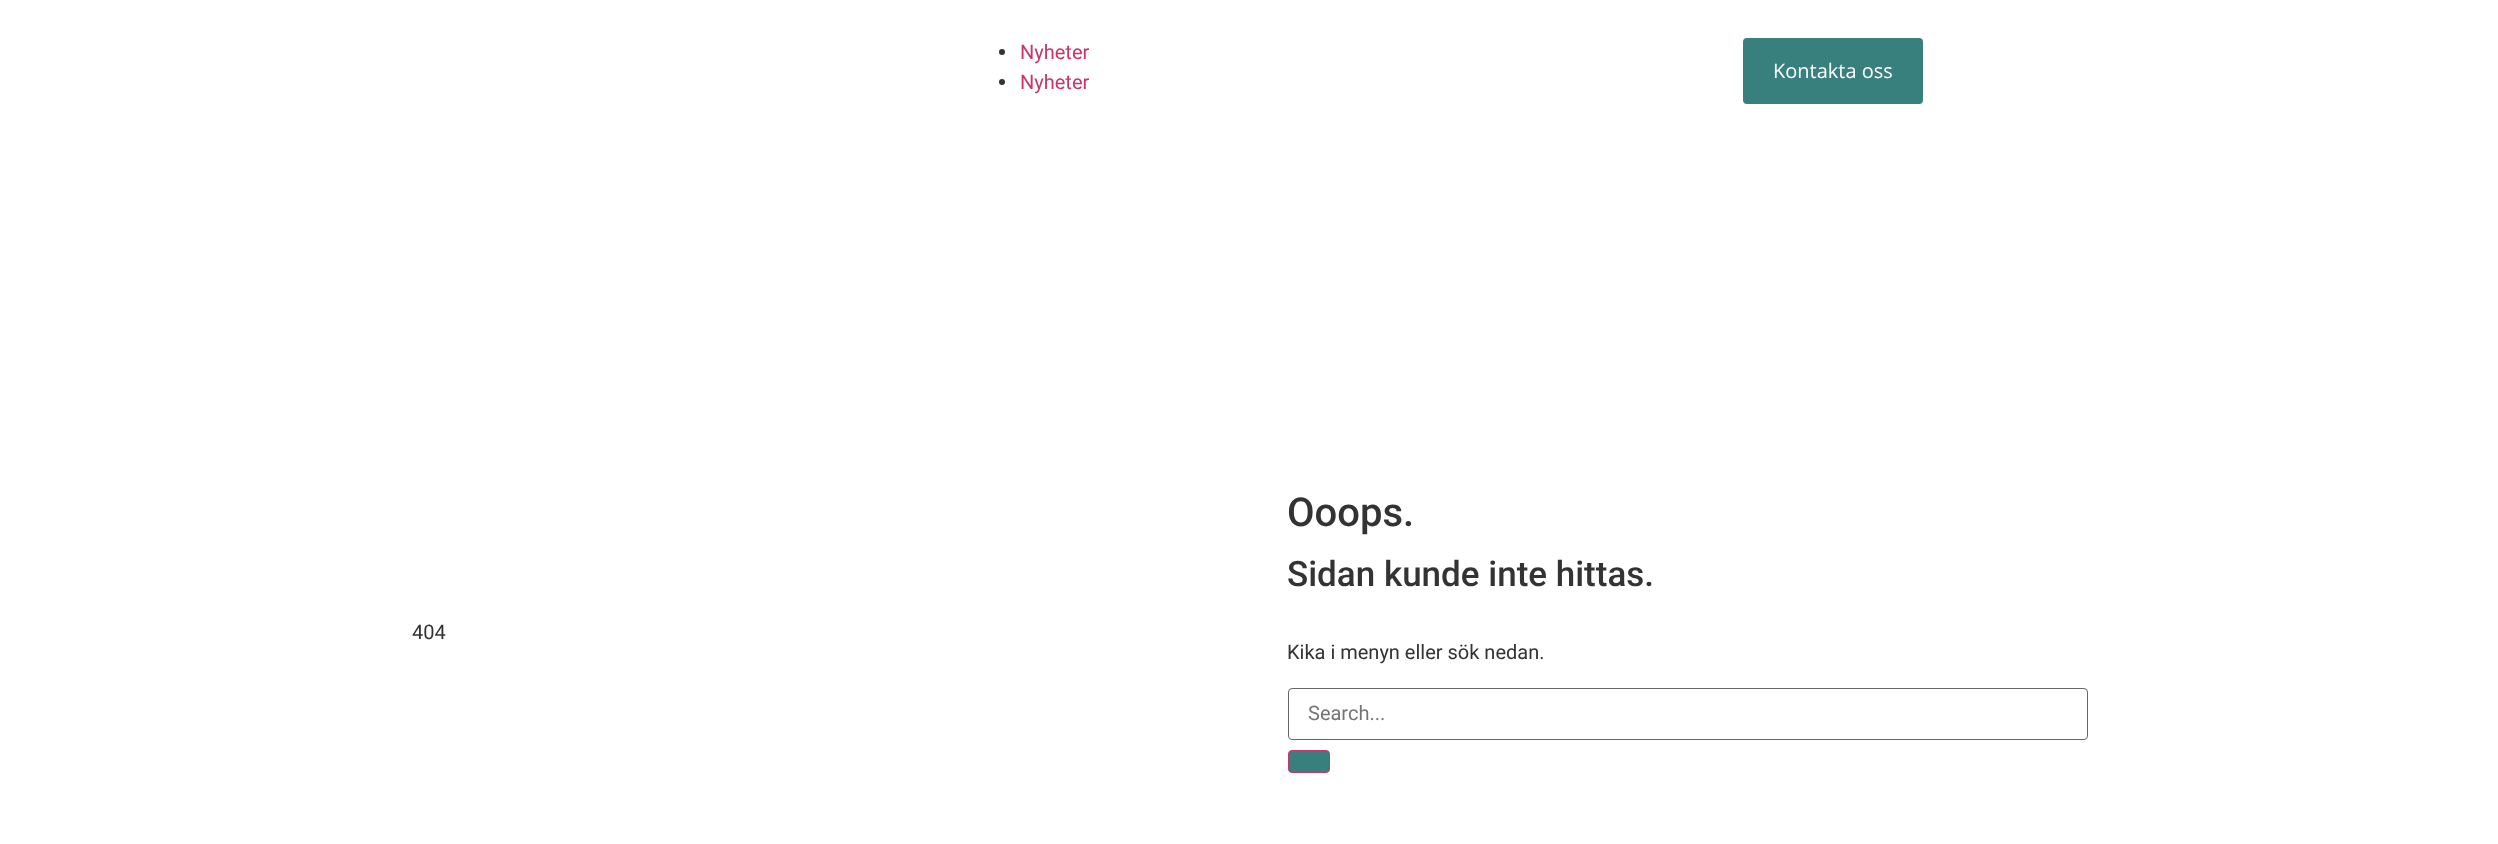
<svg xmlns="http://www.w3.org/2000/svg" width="2498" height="844">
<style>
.a{font:20px Roboto;fill:#c36}
.b{font:20px Open Sans;fill:#fff}
.c{font:20px Roboto;fill:#333}
.d{font:500 40px Roboto;fill:#333}
.e{font:500 35px Roboto;fill:#333}
.f{font:20px Roboto;fill:#757575}
</style>
<rect width="100%" height="100%" fill="#fff"/>
<circle fill="#333" cx="1002" cy="52" r="3"/>
<circle fill="#333" cx="1002" cy="82" r="3"/>
<rect fill="#38807d" x="1743" y="38" width="180" height="66" rx="4"/>
<rect fill="none" stroke="#666" x="1288.5" y="688.5" width="799" height="51" rx="3.5"/>
<rect fill="#38807d" stroke="#c36" x="1288.5" y="750.5" width="41" height="22" rx="3.5"/>
<text class="a" x="1020" y="59">Nyheter</text>
<text class="a" x="1020" y="89">Nyheter</text>
<text class="b" x="1773" y="78">Kontakta oss</text>
<text class="c" x="412" y="639">404</text>
<text class="d" x="1287" y="526">Ooops.</text>
<text class="e" x="1287" y="586">Sidan kunde inte hittas.</text>
<text class="c" x="1287" y="659">Kika i menyn eller sök nedan.</text>
<text class="f" x="1308" y="720">Search...</text>
</svg>
